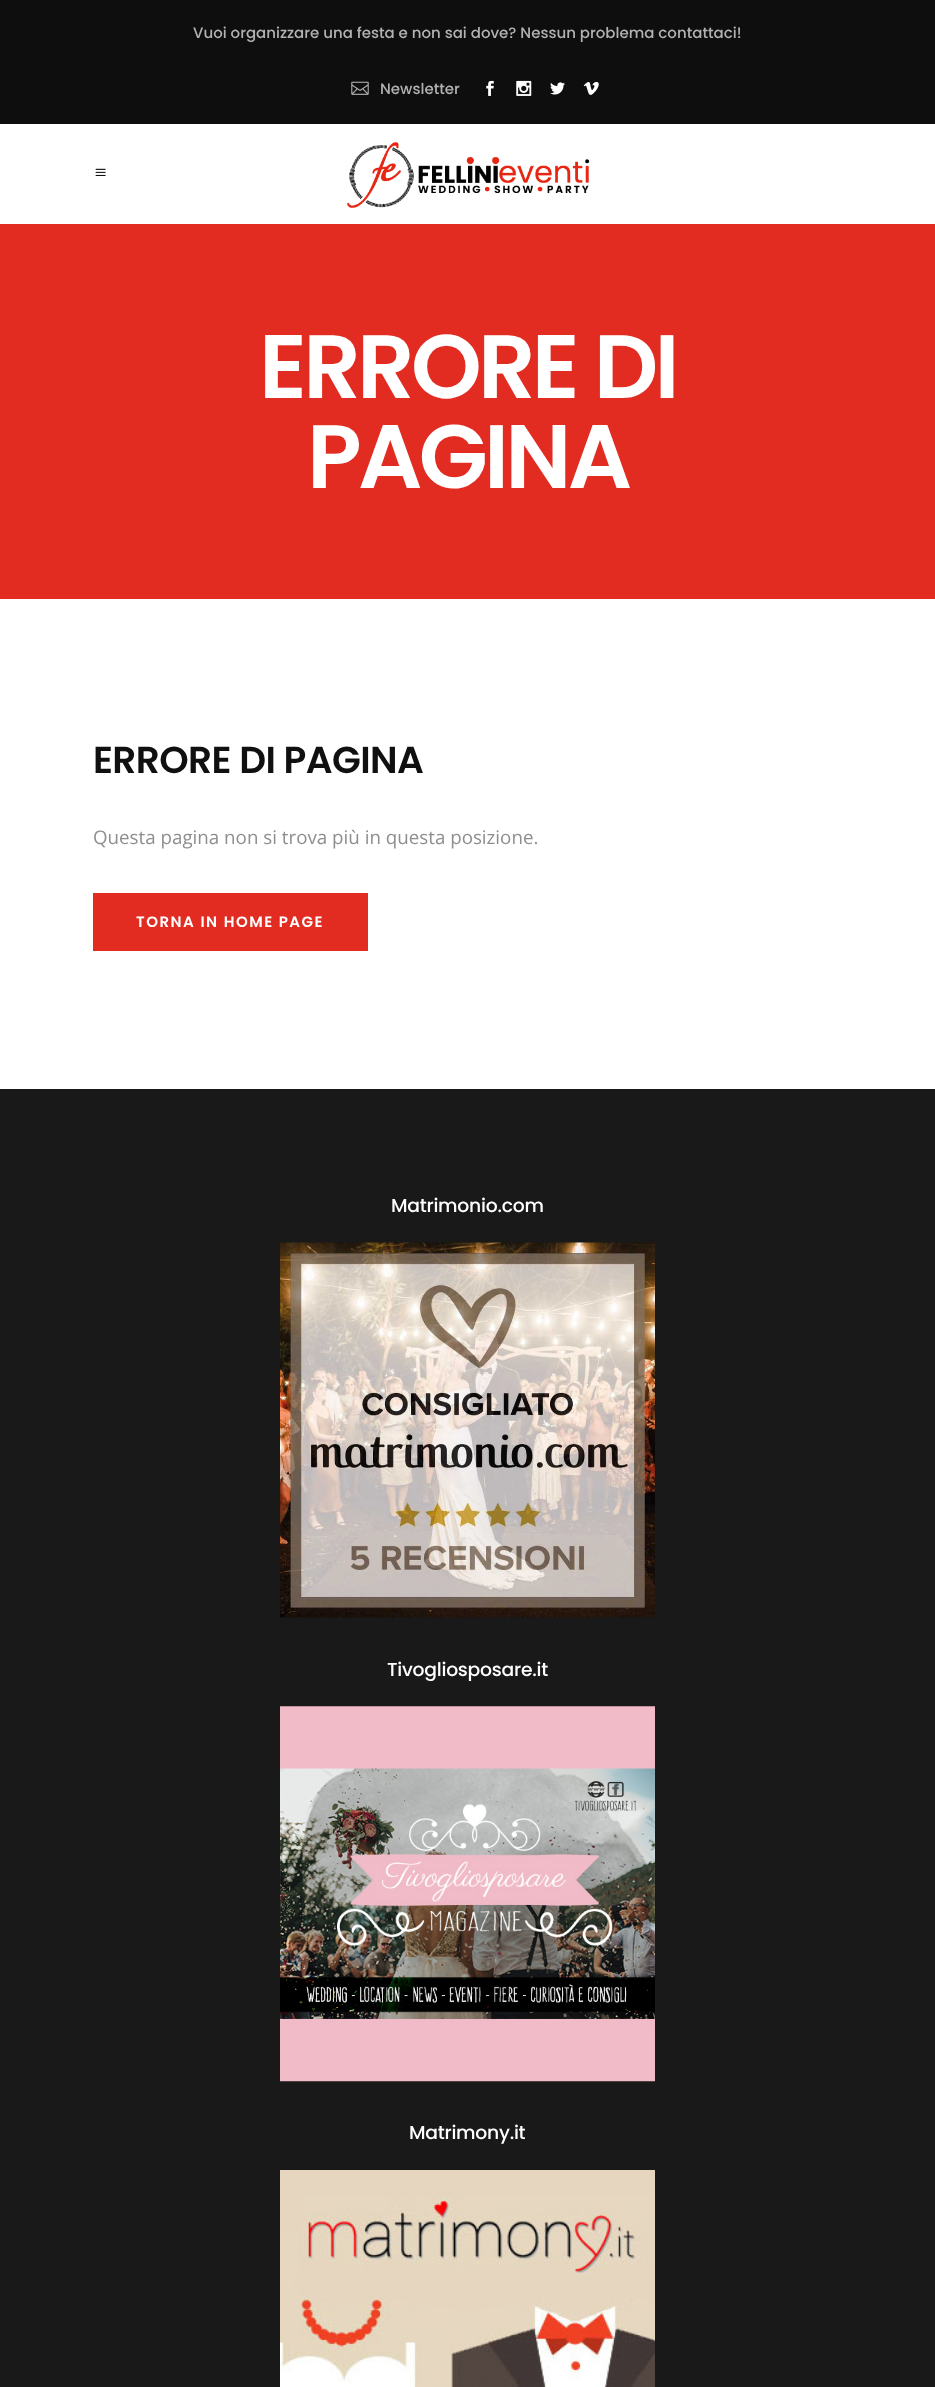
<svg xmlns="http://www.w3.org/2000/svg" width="935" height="2387">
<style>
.a{font:500 15px Poppins;fill:#b2b2b2}
.b{font:600 90px Poppins;letter-spacing:-3.75px;fill:#fff}
.c{font:600 37.5px Poppins;letter-spacing:-0.6px;fill:#101010}
.d{font:18.75px Open Sans;fill:#8e8e8e}
.e{font:600 15px Poppins;letter-spacing:1.5px;fill:#fff}
.f{font:500 18.75px Poppins;letter-spacing:-0.25px;fill:#fff}
</style>
<rect width="100%" height="100%" fill="#fff"/>
<path fill="#0e0e0e" d="M0 0h935v124H0z"/>
<image href="1.png" x="351" y="81" width="18" height="14"/>
<image href="2.png" x="486" y="80" width="8" height="16"/>
<image href="3.png" x="516" y="80" width="16" height="16"/>
<image href="4.png" x="550" y="82" width="15" height="13"/>
<image href="5.png" x="583" y="81" width="16" height="14"/>
<image href="6.png" x="95" y="168" width="11" height="8"/>
<image href="7.png" x="347" y="142" width="243" height="66"/>
<path fill="#e22c21" d="M0 224h935v375H0z"/>
<path fill="#e22c21" d="M93 893h275v58H93z"/>
<path fill="#191919" d="M0 1089h935v1298H0z"/>
<image href="8.png" x="280" y="1242" width="375" height="376"/>
<image href="9.png" x="280" y="1706" width="375" height="376"/>
<image href="10.png" x="280" y="2170" width="375" height="217"/>
<text class="a" x="193" y="38">Vuoi organizzare una festa e non sai dove? Nessun problema contattaci!</text>
<text class="a" x="380" y="94">Newsletter</text>
<text class="b" x="259" y="398">ERRORE DI</text>
<text class="b" x="307" y="488">PAGINA</text>
<text class="c" x="93" y="773">ERRORE DI PAGINA</text>
<text class="d" x="93" y="844">Questa pagina non si trova più in questa posizione.</text>
<text class="e" x="136" y="927">TORNA IN HOME PAGE</text>
<text class="f" x="391" y="1212">Matrimonio.com</text>
<text class="f" x="387" y="1676">Tivogliosposare.it</text>
<text class="f" x="409" y="2139">Matrimony.it</text>
</svg>
